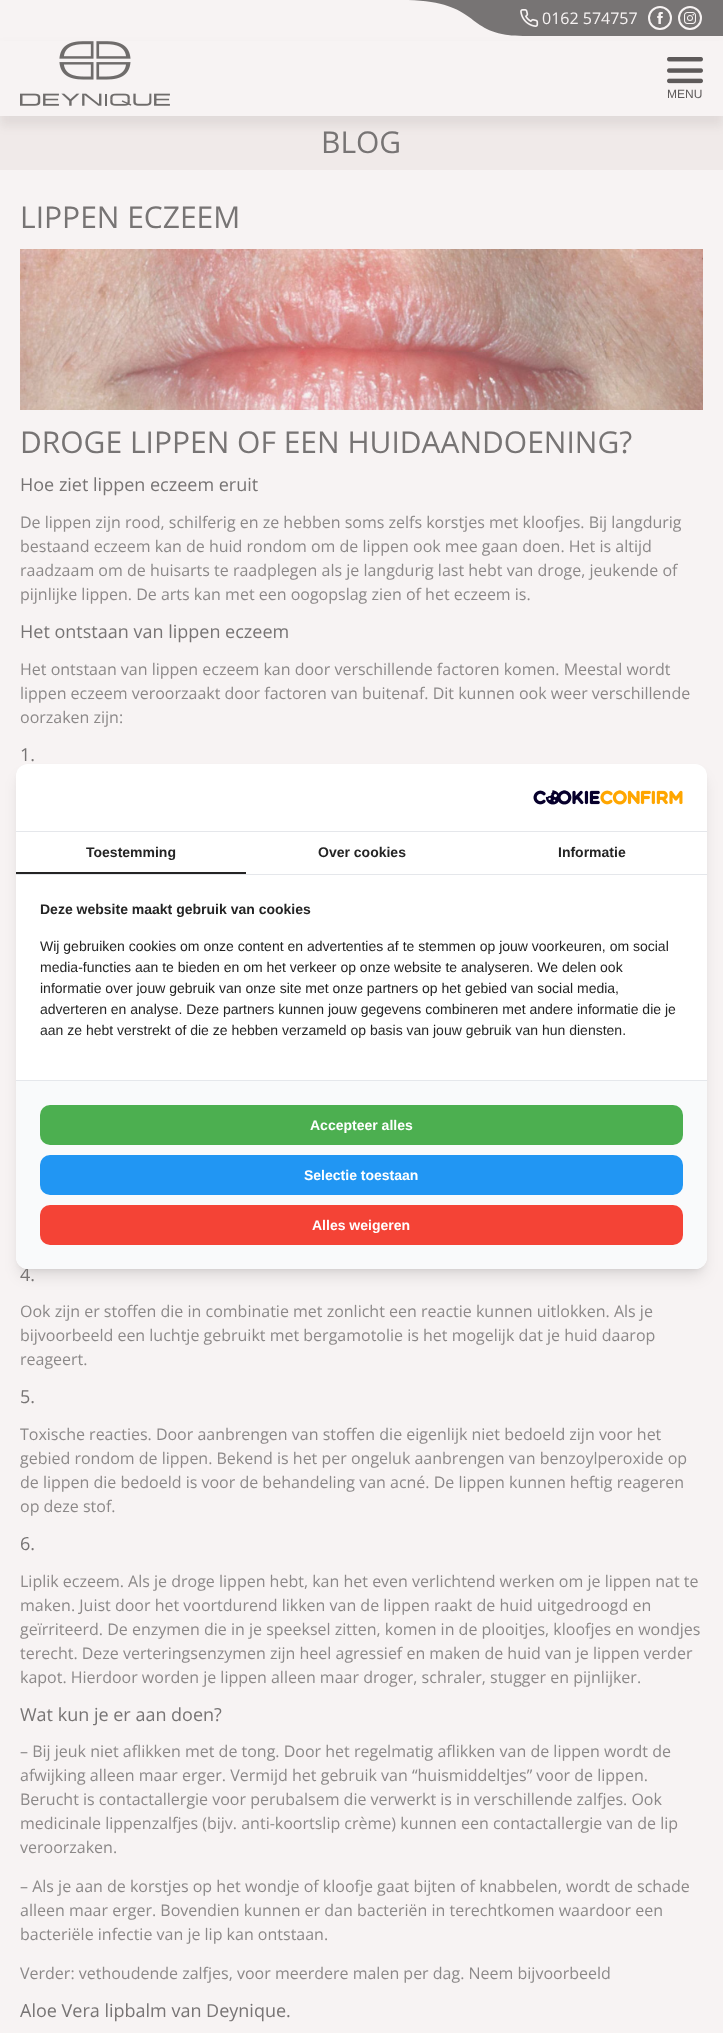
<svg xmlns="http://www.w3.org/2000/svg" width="723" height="2033">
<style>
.a{font:16px Open Sans;fill:#f7f3f3}
.b{font:12px Liberation Sans;fill:#5e5a5a}
.c{font:30px Open Sans;fill:#777474}
.d{font:18px Open Sans;fill:#777474}
.e{font:16px Open Sans;fill:#8c8989}
.f{font:bold 14px Liberation Sans;fill:#242424}
.g{font:14px Liberation Sans;fill:#242424}
.h{font:bold 14px Liberation Sans;fill:#fff}
</style>
<defs>
<clipPath id="clip1"><path d="M401 0h122v36H401z"/></clipPath>
<clipPath id="clip2"><rect x="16" y="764" width="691" height="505" rx="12"/></clipPath>
</defs>
<rect width="100%" height="100%" fill="#f7f3f3"/>
<path fill="#777474" d="M523 0h200v36H523z"/>
<g clip-path="url(#clip1)">
<path fill="#777474" d="M524 36c-63 0-39-36-123-36h123z"/>
</g>
<image href="1.png" x="520" y="9" width="19" height="18"/>
<circle fill="none" stroke="#f7f3f3" stroke-width="2" cx="660" cy="18" r="11"/>
<image href="2.png" x="657" y="12" width="6" height="12"/>
<circle fill="none" stroke="#f7f3f3" stroke-width="2" cx="690" cy="18" r="11"/>
<image href="3.png" x="684" y="12" width="12" height="12"/>
<path fill="#f0eae9" d="M0 116h723v54H0z"/>
<path fill="#5e5a5a1a" filter="blur(5px)" d="M0 46h723v80H0z"/>
<path fill="#f7f3f3" d="M0 41h723v75H0z"/>
<image href="4.png" x="20" y="41" width="150" height="65"/>
<image href="5.png" x="667" y="57" width="36" height="27"/>
<image href="6.png" x="20" y="249" width="683" height="161"/>
<rect fill="#0000001a" filter="blur(3px)" x="20" y="772" width="683" height="497" rx="8"/>
<rect fill="#0000001a" filter="blur(7.5px)" x="19" y="777" width="685" height="499" rx="9"/>
<text class="a" x="542" y="24">0162 574757</text>
<text class="b" x="667" y="98">MENU</text>
<text class="c" x="321" y="153">BLOG</text>
<text class="c" x="20" y="228">LIPPEN ECZEEM</text>
<text class="c" x="20" y="453">DROGE LIPPEN OF EEN HUIDAANDOENING?</text>
<text class="d" x="20" y="491">Hoe ziet lippen eczeem eruit</text>
<text class="e" x="20" y="528">De lippen zijn rood, schilferig en ze hebben soms zelfs korstjes met kloofjes. Bij langdurig</text>
<text class="e" x="20" y="552">bestaand eczeem kan de huid rondom om de lippen ook mee gaan doen. Het is altijd</text>
<text class="e" x="20" y="576">raadzaam om de huisarts te raadplegen als je langdurig last hebt van droge, jeukende of</text>
<text class="e" x="20" y="600">pijnlijke lippen. De arts kan met een oogopslag zien of het eczeem is.</text>
<text class="d" x="20" y="638">Het ontstaan van lippen eczeem</text>
<text class="e" x="20" y="675">Het ontstaan van lippen eczeem kan door verschillende factoren komen. Meestal wordt</text>
<text class="e" x="20" y="699">lippen eczeem veroorzaakt door factoren van buitenaf. Dit kunnen ook weer verschillende</text>
<text class="e" x="20" y="723">oorzaken zijn:</text>
<text class="d" x="20" y="761">1.</text>
<text class="d" x="20" y="1281">4.</text>
<text class="e" x="20" y="1317">Ook zijn er stoffen die in combinatie met zonlicht een reactie kunnen uitlokken. Als je</text>
<text class="e" x="20" y="1341">bijvoorbeeld een luchtje gebruikt met bergamotolie is het mogelijk dat je huid daarop</text>
<text class="e" x="20" y="1365">reageert.</text>
<text class="d" x="20" y="1403">5.</text>
<text class="e" x="20" y="1440">Toxische reacties. Door aanbrengen van stoffen die eigenlijk niet bedoeld zijn voor het</text>
<text class="e" x="20" y="1464">gebied rondom de lippen. Bekend is het per ongeluk aanbrengen van benzoylperoxide op</text>
<text class="e" x="20" y="1488">de lippen die bedoeld is voor de behandeling van acné. De lippen kunnen heftig reageren</text>
<text class="e" x="20" y="1512">op deze stof.</text>
<text class="d" x="20" y="1550">6.</text>
<text class="e" x="20" y="1587">Liplik eczeem. Als je droge lippen hebt, kan het even verlichtend werken om je lippen nat te</text>
<text class="e" x="20" y="1611">maken. Juist door het voortdurend likken van de lippen raakt de huid uitgedroogd en</text>
<text class="e" x="20" y="1635">geïrriteerd. De enzymen die in je speeksel zitten, komen in de plooitjes, kloofjes en wondjes</text>
<text class="e" x="20" y="1659">terecht. Deze verteringsenzymen zijn heel agressief en maken de huid van je lippen verder</text>
<text class="e" x="20" y="1683">kapot. Hierdoor worden je lippen alleen maar droger, schraler, stugger en pijnlijker.</text>
<text class="d" x="20" y="1721">Wat kun je er aan doen?</text>
<text class="e" x="20" y="1757">– Bij jeuk niet aflikken met de tong. Door het regelmatig aflikken van de lippen wordt de</text>
<text class="e" x="20" y="1781">afwijking alleen maar erger. Vermijd het gebruik van “huismiddeltjes” voor de lippen.</text>
<text class="e" x="20" y="1805">Berucht is contactallergie voor perubalsem die verwerkt is in verschillende zalfjes. Ook</text>
<text class="e" x="20" y="1829">medicinale lippenzalfjes (bijv. anti-koortslip crème) kunnen een contactallergie van de lip</text>
<text class="e" x="20" y="1853">veroorzaken.</text>
<text class="e" x="20" y="1892">– Als je aan de korstjes op het wondje of kloofje gaat bijten of knabbelen, wordt de schade</text>
<text class="e" x="20" y="1916">alleen maar erger. Bovendien kunnen er dan bacteriën in terechtkomen waardoor een</text>
<text class="e" x="20" y="1940">bacteriële infectie van je lip kan ontstaan.</text>
<text class="e" x="20" y="1979">Verder: vethoudende zalfjes, voor meerdere malen per dag. Neem bijvoorbeeld</text>
<text class="d" x="20" y="2017">Aloe Vera lipbalm van Deynique.</text>
<rect fill="#fff" x="16" y="764" width="691" height="505" rx="12"/>
<path fill="#e5e7eb" d="M16 831h691v1H16z"/>
<image href="7.png" x="533" y="790" width="150" height="15"/>
<path fill="#e5e7eb" d="M16 874h691v1H16z"/>
<path fill="#242424" d="M16 872h230v2H16z"/>
<text class="f" x="86" y="857">Toestemming</text>
<text class="f" x="318" y="857">Over cookies</text>
<text class="f" x="558" y="857">Informatie</text>
<text class="f" x="40" y="914">Deze website maakt gebruik van cookies</text>
<text class="g" x="40" y="951">Wij gebruiken cookies om onze content en advertenties af te stemmen op jouw voorkeuren, om social</text>
<text class="g" x="40" y="972">media-functies aan te bieden en om het verkeer op onze website te analyseren. We delen ook</text>
<text class="g" x="40" y="993">informatie over jouw gebruik van onze site met onze partners op het gebied van social media,</text>
<text class="g" x="40" y="1014">adverteren en analyse. Deze partners kunnen jouw gegevens combineren met andere informatie die je</text>
<text class="g" x="40" y="1035">aan ze hebt verstrekt of die ze hebben verzameld op basis van jouw gebruik van hun diensten.</text>
<g clip-path="url(#clip2)">
<path fill="#fff" filter="blur(10px)" d="M8 1052h707v205H8z"/>
</g>
<path fill="#f9fafb" d="M16 1080h691v177c0 6.5-5.5 12-12 12h-667c-6.5 0-12-5.5-12-12z"/>
<path fill="#e5e7eb" d="M16 1080h691v1H16z"/>
<rect fill="#4caf50" x="40" y="1105" width="643" height="40" rx="10"/>
<text class="h" x="310" y="1130">Accepteer alles</text>
<rect fill="#2196f3" x="40" y="1155" width="643" height="40" rx="10"/>
<text class="h" x="304" y="1180">Selectie toestaan</text>
<rect fill="#f44336" x="40" y="1205" width="643" height="40" rx="10"/>
<text class="h" x="312" y="1230">Alles weigeren</text>
</svg>
